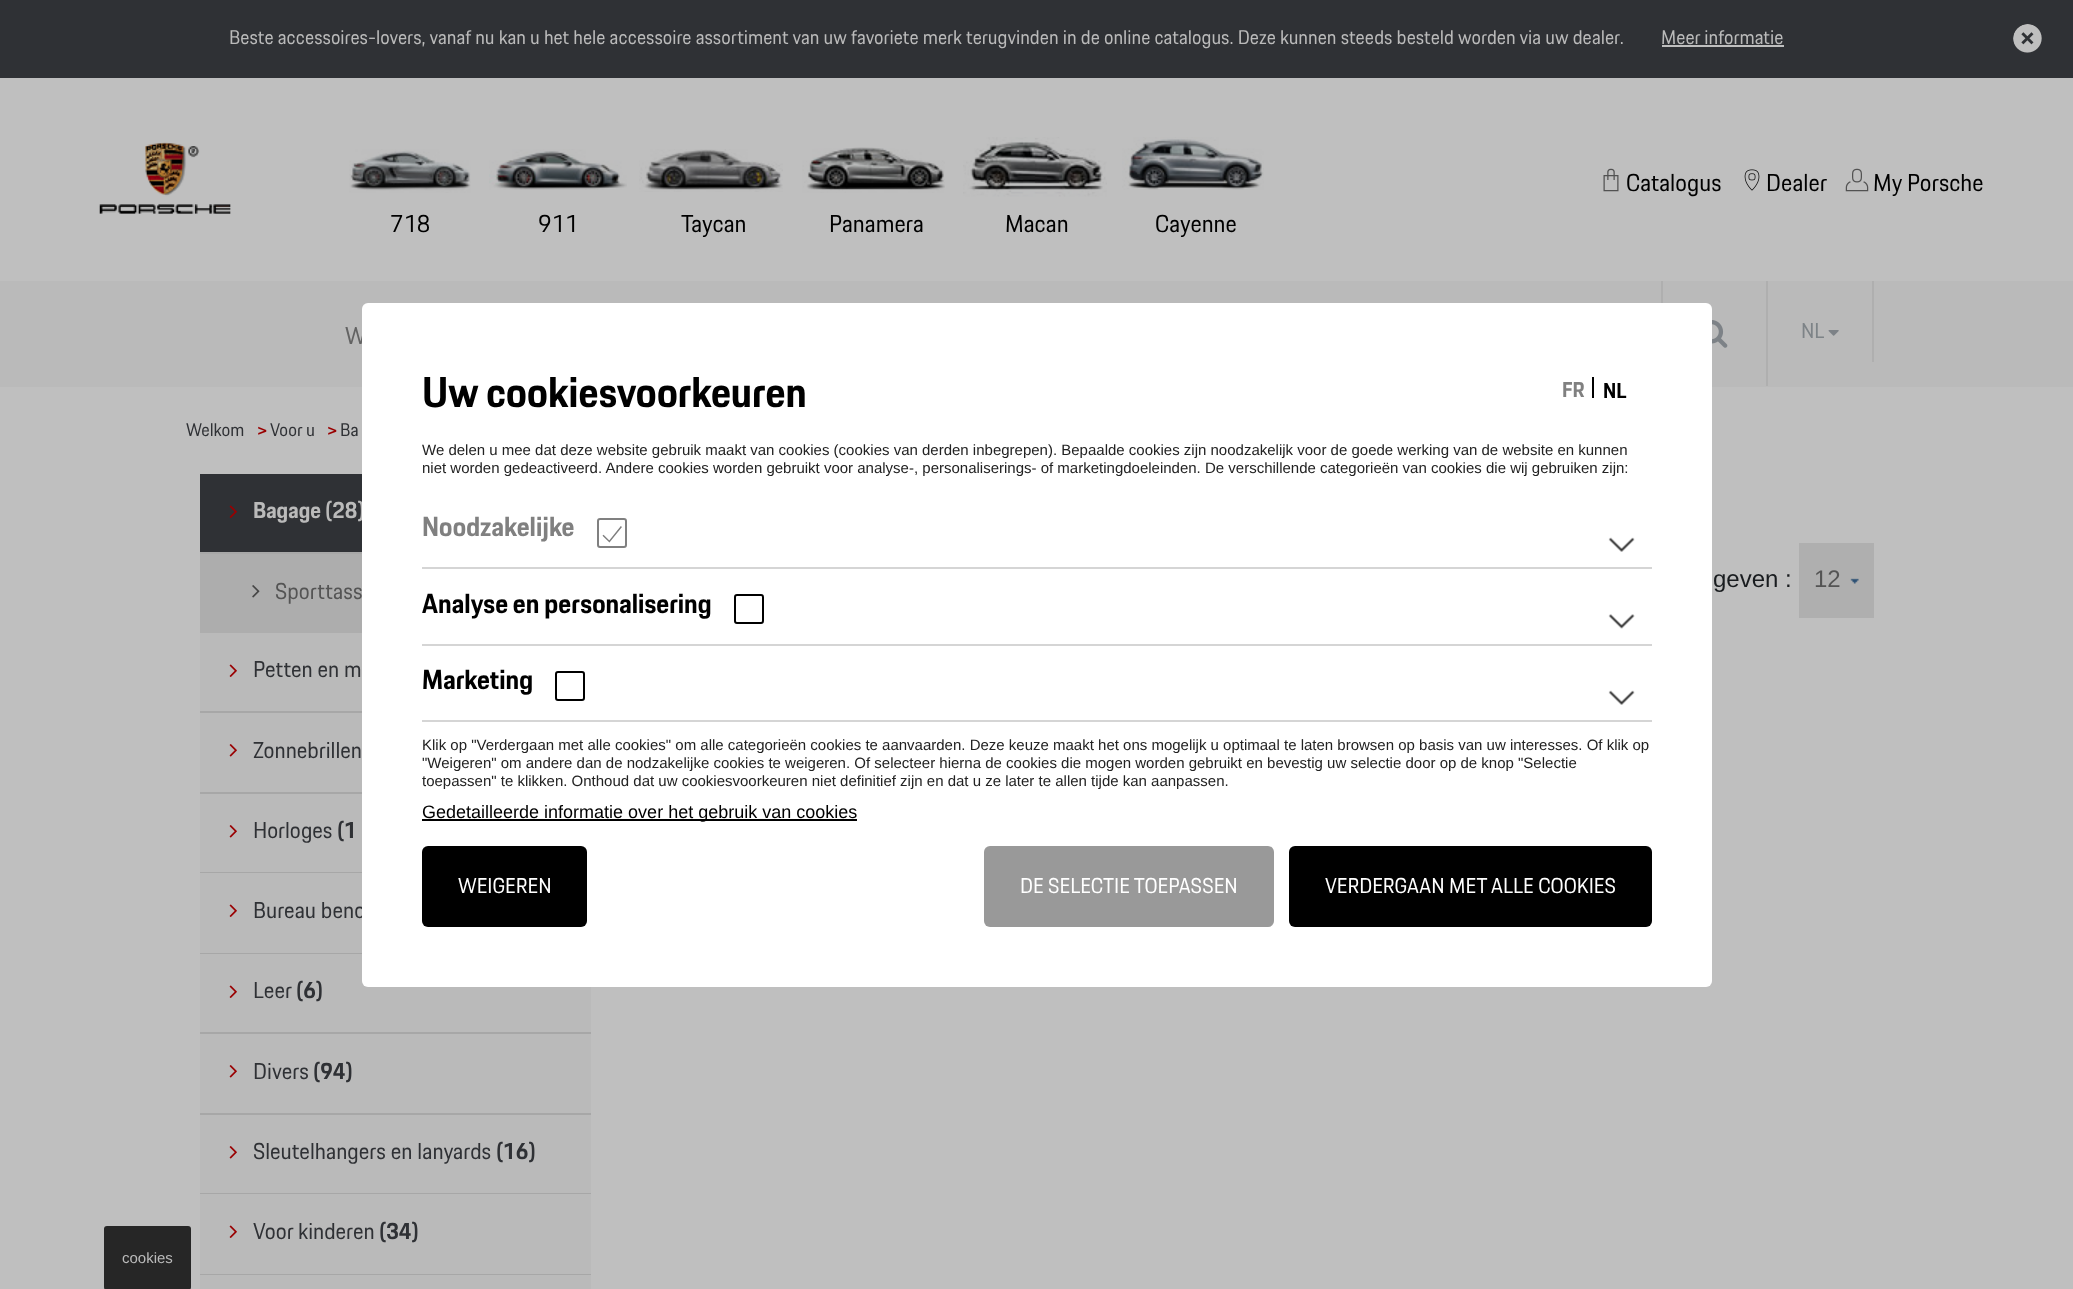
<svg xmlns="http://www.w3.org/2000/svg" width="2073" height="1289">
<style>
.a{font:19.5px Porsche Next;fill:#bababa}
.b{font:24px Porsche Next;fill:#000}
.c{font:24px Porsche Next;fill:#636363}
.d{font:21px Porsche Next;fill:#7d8387}
.e{font:18px Porsche Next;fill:#2f3135}
.f{font:bold 18px Porsche Next;fill:#990001}
.g{font:bold 22.5px Porsche Next;fill:#bababa}
.h{font:22.5px Porsche Next;fill:#545454}
.i{font:22.5px Porsche Next;fill:#2f3135}
.j{font:bold 22.5px Porsche Next;fill:#2f3135}
.k{font:21px Porsche Next;fill:#fff}
.l{font:18px Liberation Sans;fill:#000}
.m{font:bold 27px Porsche Next;fill:#000}
.n{font:bold 27px Porsche Next;fill:#808080}
.o{font:bold 21px Porsche Next;fill:#000}
.p{font:bold 21px Porsche Next;fill:#808080}
.q{font:bold 42px Porsche Next;fill:#000}
.r{font:15px Liberation Sans;fill:#222}
.s{font:24px Liberation Sans;fill:#191c1f}
.t{font:24px Liberation Sans;fill:#545454}
.u{font:15px Liberation Sans;fill:#bababa}
</style>
<rect width="100%" height="100%" fill="#bfbfbf"/>
<path fill="#2f3135" d="M0 0h2073v78H0z"/>
<path fill="#bfbfbf" d="M1662 45h122v2H1662z"/>
<image href="1.png" x="2013" y="24" width="29" height="29"/>
<image href="2.png" x="99" y="142" width="132" height="72"/>
<image href="3.png" x="1603" y="168" width="16" height="24"/>
<image href="4.png" x="1744" y="169" width="16" height="22"/>
<image href="5.png" x="1845" y="168" width="24" height="24"/>
<image href="6.png" x="349" y="149" width="122" height="44"/>
<image href="7.png" x="489" y="149" width="138" height="41"/>
<image href="8.png" x="639" y="149" width="144" height="43"/>
<image href="9.png" x="802" y="147" width="143" height="46"/>
<image href="10.png" x="963" y="137" width="144" height="60"/>
<image href="11.png" x="1122" y="137" width="142" height="53"/>
<path fill="#bababa" d="M0 281h2073v106H0z"/>
<path fill="#afafaf" d="M1766 281h2v105H1766z"/>
<path fill="#afafaf" d="M1661 281h2v22H1661z"/>
<image href="12.png" x="1712" y="320" width="16" height="28"/>
<path fill="#afafaf" d="M1872 281h2v81H1872z"/>
<image href="13.png" x="1828" y="330" width="11" height="6"/>
<path fill="#2f3135" d="M200 474h162v78H200z"/>
<path fill="#a7a7a7" d="M200 552h162v2H200z"/>
<image href="17.png" x="229" y="505" width="8" height="13"/>
<path fill="#adadad" d="M200 554h162v79H200z"/>
<image href="18.png" x="252" y="585" width="8" height="13"/>
<path fill="#bababa" d="M200 633h162v78H200z"/>
<path fill="#a7a7a7" d="M200 711h162v2H200z"/>
<image href="19.png" x="229" y="664" width="8" height="13"/>
<path fill="#bababa" d="M200 713h162v79H200z"/>
<path fill="#a7a7a7" d="M200 792h162v2H200z"/>
<image href="20.png" x="229" y="744" width="8" height="13"/>
<path fill="#bababa" d="M200 794h162v78H200z"/>
<path fill="#a7a7a7" d="M200 872h162v1H200z"/>
<image href="20.png" x="229" y="825" width="8" height="13"/>
<path fill="#bababa" d="M200 873h162v80H200z"/>
<path fill="#a7a7a7" d="M200 953h162v1H200z"/>
<image href="19.png" x="229" y="904" width="8" height="13"/>
<path fill="#bababa" d="M200 954h391v78H200z"/>
<path fill="#a7a7a7" d="M200 1032h391v2H200z"/>
<image href="19.png" x="229" y="985" width="8" height="13"/>
<path fill="#bababa" d="M200 1034h391v79H200z"/>
<path fill="#a7a7a7" d="M200 1113h391v2H200z"/>
<image href="20.png" x="229" y="1065" width="8" height="13"/>
<path fill="#bababa" d="M200 1115h391v78H200z"/>
<path fill="#a7a7a7" d="M200 1193h391v1H200z"/>
<image href="20.png" x="229" y="1146" width="8" height="13"/>
<path fill="#bababa" d="M200 1194h391v80H200z"/>
<path fill="#a7a7a7" d="M200 1274h391v1H200z"/>
<image href="19.png" x="229" y="1225" width="8" height="13"/>
<path fill="#bababa" d="M200 1275h391v14H200z"/>
<path fill="#afafaf" d="M1799 543h75v75H1799z"/>
<image href="21.png" x="1850" y="578" width="9" height="6"/>
<rect fill="#262626" x="104" y="1226" width="87" height="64" rx="3"/>
<text class="a" x="229" y="44">Beste accessoires-lovers, vanaf nu kan u het hele accessoire assortiment van uw favoriete merk terugvinden in de online catalogus. Deze kunnen steeds besteld worden via uw dealer.</text>
<text class="a" x="1661" y="44">Meer informatie</text>
<text class="b" x="1626" y="191">Catalogus</text>
<text class="c" x="345" y="344">W</text>
<text class="b" x="1766" y="191">Dealer</text>
<text class="b" x="1873" y="191">My Porsche</text>
<text class="b" x="390" y="232">718</text>
<text class="b" x="538" y="232">911</text>
<text class="b" x="681" y="232">Taycan</text>
<text class="b" x="829" y="232">Panamera</text>
<text class="b" x="1005" y="232">Macan</text>
<text class="b" x="1155" y="232">Cayenne</text>
<text class="d" x="1801" y="338">NL</text>
<text class="e" x="186" y="436">Welkom</text>
<text class="f" x="257" y="436">&gt;</text>
<text class="e" x="270" y="436">Voor u</text>
<text class="f" x="327" y="436">&gt;</text>
<text class="e" x="340" y="436">Ba</text>
<text class="g" x="253" y="518">Bagage (28)</text>
<text class="h" x="275" y="599">Sporttass</text>
<text class="i" x="253" y="677">Petten en m</text>
<text class="i" x="253" y="758">Zonnebrillen</text>
<text class="i" x="253" y="838">Horloges</text>
<text class="j" x="337" y="838">(1</text>
<text class="i" x="253" y="918">Bureau beno</text>
<rect fill="#fff" x="362" y="303" width="1350" height="684" rx="6"/>
<image href="15.png" x="1608" y="690" width="27" height="15"/>
<image href="16.png" x="1608" y="614" width="27" height="15"/>
<image href="15.png" x="1608" y="537" width="27" height="15"/>
<rect fill="#000" x="422" y="846" width="165" height="81" rx="6"/>
<text class="k" x="458" y="893">WEIGEREN</text>
<rect fill="#999" x="984" y="846" width="290" height="81" rx="6"/>
<text class="k" x="1020" y="893">DE SELECTIE TOEPASSEN</text>
<path fill="#000" d="M422 819h435v2H422z"/>
<text class="l" x="422" y="818">Gedetailleerde informatie over het gebruik van cookies</text>
<rect fill="#000" x="1289" y="846" width="363" height="81" rx="6"/>
<text class="k" x="1325" y="893">VERDERGAAN MET ALLE COOKIES</text>
<rect fill="none" stroke="#000" stroke-width="2" x="556" y="672" width="28" height="28" rx="2"/>
<text class="m" x="422" y="689">Marketing</text>
<rect fill="none" stroke="#000" stroke-width="2" x="735" y="595" width="28" height="28" rx="2"/>
<text class="m" x="422" y="613">Analyse en personalisering</text>
<rect fill="none" stroke="#808080" stroke-width="2" x="598" y="519" width="28" height="28" rx="2"/>
<image href="14.png" x="602" y="526" width="20" height="17"/>
<text class="n" x="422" y="536">Noodzakelijke</text>
<text class="o" x="1603" y="398">NL</text>
<path fill="#000" d="M1592 377h2v21H1592z"/>
<text class="p" x="1562" y="397">FR</text>
<text class="q" x="422" y="407">Uw cookiesvoorkeuren</text>
<path fill="#d5d5d5" d="M422 720h1230v2H422z"/>
<path fill="#d5d5d5" d="M422 644h1230v2H422z"/>
<path fill="#d5d5d5" d="M422 567h1230v2H422z"/>
<text class="r" x="422" y="786">toepassen" te klikken. Onthoud dat uw cookiesvoorkeuren niet definitief zijn en dat u ze later te allen tijde kan aanpassen.</text>
<text class="r" x="422" y="768">"Weigeren" om andere dan de nodzakelijke cookies te weigeren. Of selecteer hierna de cookies die mogen worden gebruikt en bevestig uw selectie door op de knop "Selectie</text>
<text class="r" x="422" y="750">Klik op "Verdergaan met alle cookies" om alle categorieën cookies te aanvaarden. Deze keuze maakt het ons mogelijk u optimaal te laten browsen op basis van uw interesses. Of klik op</text>
<text class="r" x="422" y="473">niet worden gedeactiveerd. Andere cookies worden gebruikt voor analyse-, personaliserings- of marketingdoeleinden. De verschillende categorieën van cookies die wij gebruiken zijn:</text>
<text class="r" x="422" y="455">We delen u mee dat deze website gebruik maakt van cookies (cookies van derden inbegrepen). Bepaalde cookies zijn noodzakelijk voor de goede werking van de website en kunnen</text>
<text class="i" x="253" y="998">Leer</text>
<text class="j" x="296" y="998">(6)</text>
<text class="i" x="253" y="1079">Divers</text>
<text class="j" x="313" y="1079">(94)</text>
<text class="i" x="253" y="1159">Sleutelhangers en lanyards</text>
<text class="j" x="496" y="1159">(16)</text>
<text class="i" x="253" y="1239">Voor kinderen</text>
<text class="j" x="379" y="1239">(34)</text>
<text class="s" x="1713" y="587">geven :</text>
<text class="t" x="1814" y="587">12</text>
<text class="u" x="122" y="1263">cookies</text>
</svg>
